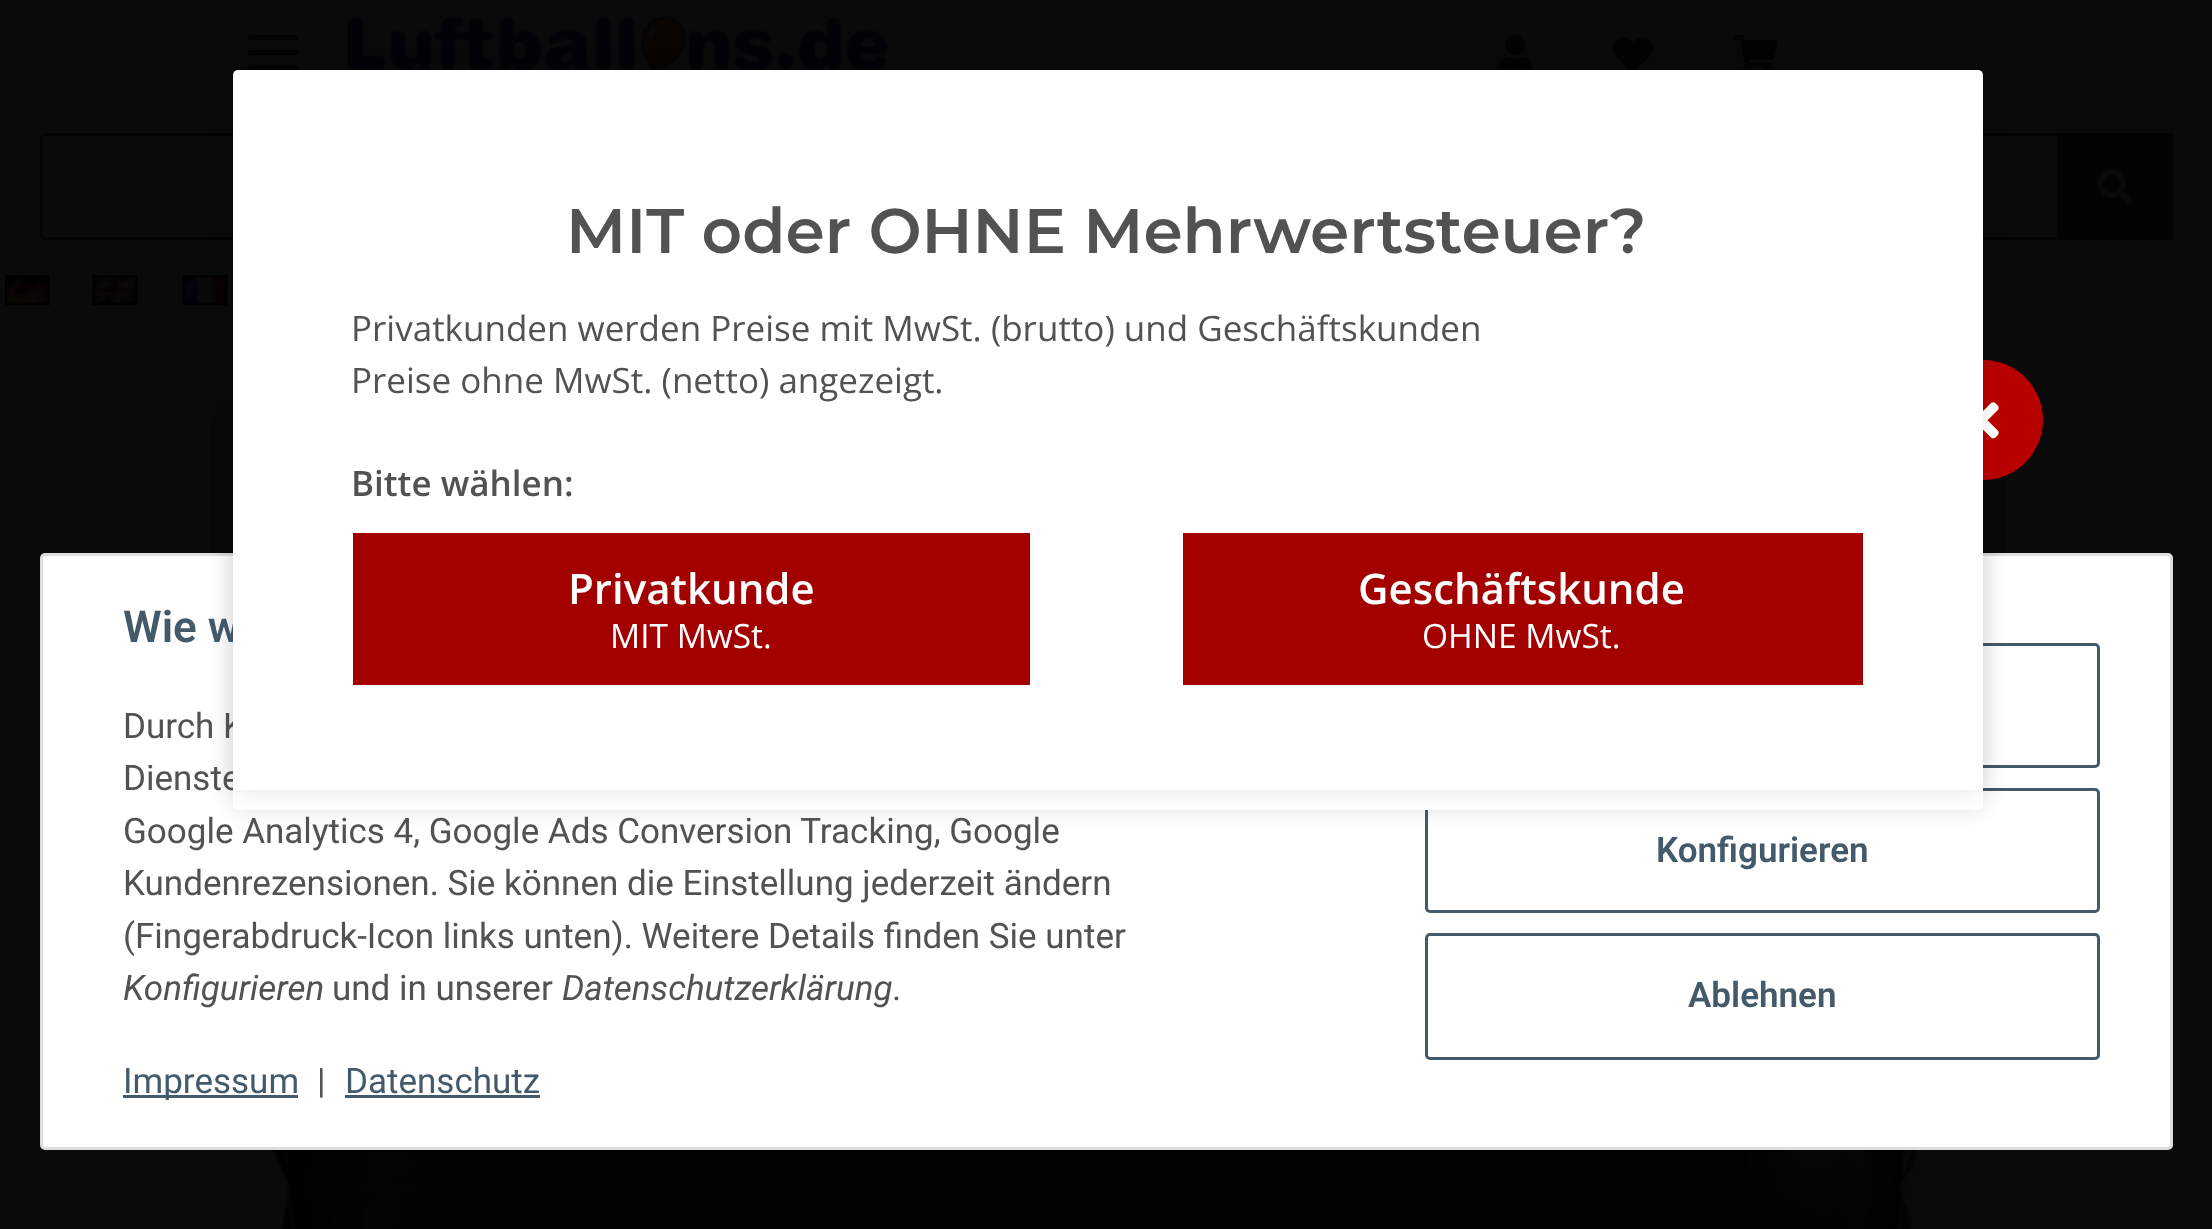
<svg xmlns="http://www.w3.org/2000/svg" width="2212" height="1229">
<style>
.a{font:600 44px Roboto;fill:#435a6b}
.b{font:35px Roboto;fill:#525252}
.c{font:600 35px Open Sans;fill:#525252}
.d{font:35px Open Sans;fill:#525252}
.e{font:600 63px Montserrat;fill:#525252}
.f{font:33.5px Open Sans;fill:#fff}
.g{font:600 42px Open Sans;fill:#fff}
.h{font:italic 35px Roboto;fill:#525252}
.i{font:35px Roboto;fill:#435a6b}
.j{font:600 35px Roboto;fill:#435a6b}
</style>
<rect width="100%" height="100%" fill="#0a0a0a"/>
<rect fill="#030303" x="248" y="50" width="50" height="5" rx="2.5"/>
<rect fill="#030303" x="248" y="35" width="50" height="5" rx="2.5"/>
<rect fill="#030303" x="248" y="65" width="50" height="5" rx="2.5"/>
<image href="1.png" x="337" y="15" width="561" height="55"/>
<image href="2.png" x="1497" y="35" width="36" height="35"/>
<image href="3.png" x="1612" y="37" width="41" height="33"/>
<image href="4.png" x="1732" y="35" width="46" height="35"/>
<path fill="none" stroke="#040404" stroke-width="3" d="M45 134.5h2013.5v104h-2013.5c-2 0-3.5-1.5-3.5-3.5v-97c0-2 1.5-3.5 3.5-3.5z"/>
<path fill="#030303" d="M2060 133h113v107H2060z"/>
<image href="5.png" x="2097" y="169" width="36" height="36"/>
<image href="6.png" x="5" y="275" width="45" height="30"/>
<image href="7.png" x="92" y="275" width="46" height="30"/>
<image href="8.png" x="182" y="275" width="46" height="30"/>
<rect fill="#fff" stroke="#ddd" stroke-width="3" x="41.5" y="554.5" width="2130" height="594" rx="3.5"/>
<rect fill="none" stroke="#435a6b" stroke-width="3" x="1426.5" y="644.5" width="672" height="122" rx="3.5"/>
<rect fill="none" stroke="#435a6b" stroke-width="3" x="1426.5" y="789.5" width="672" height="122" rx="3.5"/>
<rect fill="#0000001a" filter="blur(12.5px)" x="233" y="420" width="1750" height="390" rx="5"/>
<path fill="#435a6b" d="M123 1095h175v3H123z"/>
<path fill="#435a6b" d="M345 1095h195v3H345z"/>
<rect fill="none" stroke="#435a6b" stroke-width="3" x="1426.5" y="934.5" width="672" height="124" rx="3.5"/>
<image href="10.png" x="264" y="1150" width="1688" height="79"/>
<text class="a" x="123" y="642">Wie w</text>
<text class="b" x="123" y="738">Durch K</text>
<text class="b" x="123" y="790">Dienste</text>
<rect fill="#fff" x="233" y="420" width="1750" height="390" rx="5"/>
<circle fill="#b90000" cx="1983" cy="420" r="60"/>
<image href="9.png" x="1983" y="402" width="16" height="37"/>
<rect fill="#0000001a" filter="blur(12.5px)" x="233" y="70" width="1750" height="720" rx="5"/>
<rect fill="#fff" x="233" y="70" width="1750" height="720" rx="5"/>
<text class="c" x="351" y="496">Bitte wählen:</text>
<text class="d" x="351" y="393">Preise ohne MwSt. (netto) angezeigt.</text>
<text class="d" x="351" y="341">Privatkunden werden Preise mit MwSt. (brutto) und Geschäftskunden</text>
<text class="e" x="566" y="253">MIT oder OHNE Mehrwertsteuer?</text>
<path fill="#a30000" d="M1183 533h680v152H1183z"/>
<text class="f" x="1422" y="648">OHNE MwSt.</text>
<text class="g" x="1358" y="604">Geschäftskunde</text>
<path fill="#a30000" d="M353 533h677v152H353z"/>
<text class="f" x="610" y="648">MIT MwSt.</text>
<text class="g" x="568" y="604">Privatkunde</text>
<text class="b" x="123" y="843">Google Analytics 4, Google Ads Conversion Tracking, Google</text>
<text class="b" x="123" y="895">Kundenrezensionen. Sie können die Einstellung jederzeit ändern</text>
<text class="b" x="123" y="948">(Fingerabdruck-Icon links unten). Weitere Details finden Sie unter</text>
<text class="h" x="123" y="1000">Konfigurieren</text>
<text class="b" x="332" y="1000">und in unserer</text>
<text class="h" x="562" y="1000">Datenschutzerklärung</text>
<text class="b" x="892" y="1000">.</text>
<text class="i" x="123" y="1093">Impressum</text>
<text class="b" x="317" y="1093">|</text>
<text class="i" x="345" y="1093">Datenschutz</text>
<text class="j" x="1656" y="862">Konfigurieren</text>
<text class="j" x="1688" y="1007">Ablehnen</text>
</svg>
